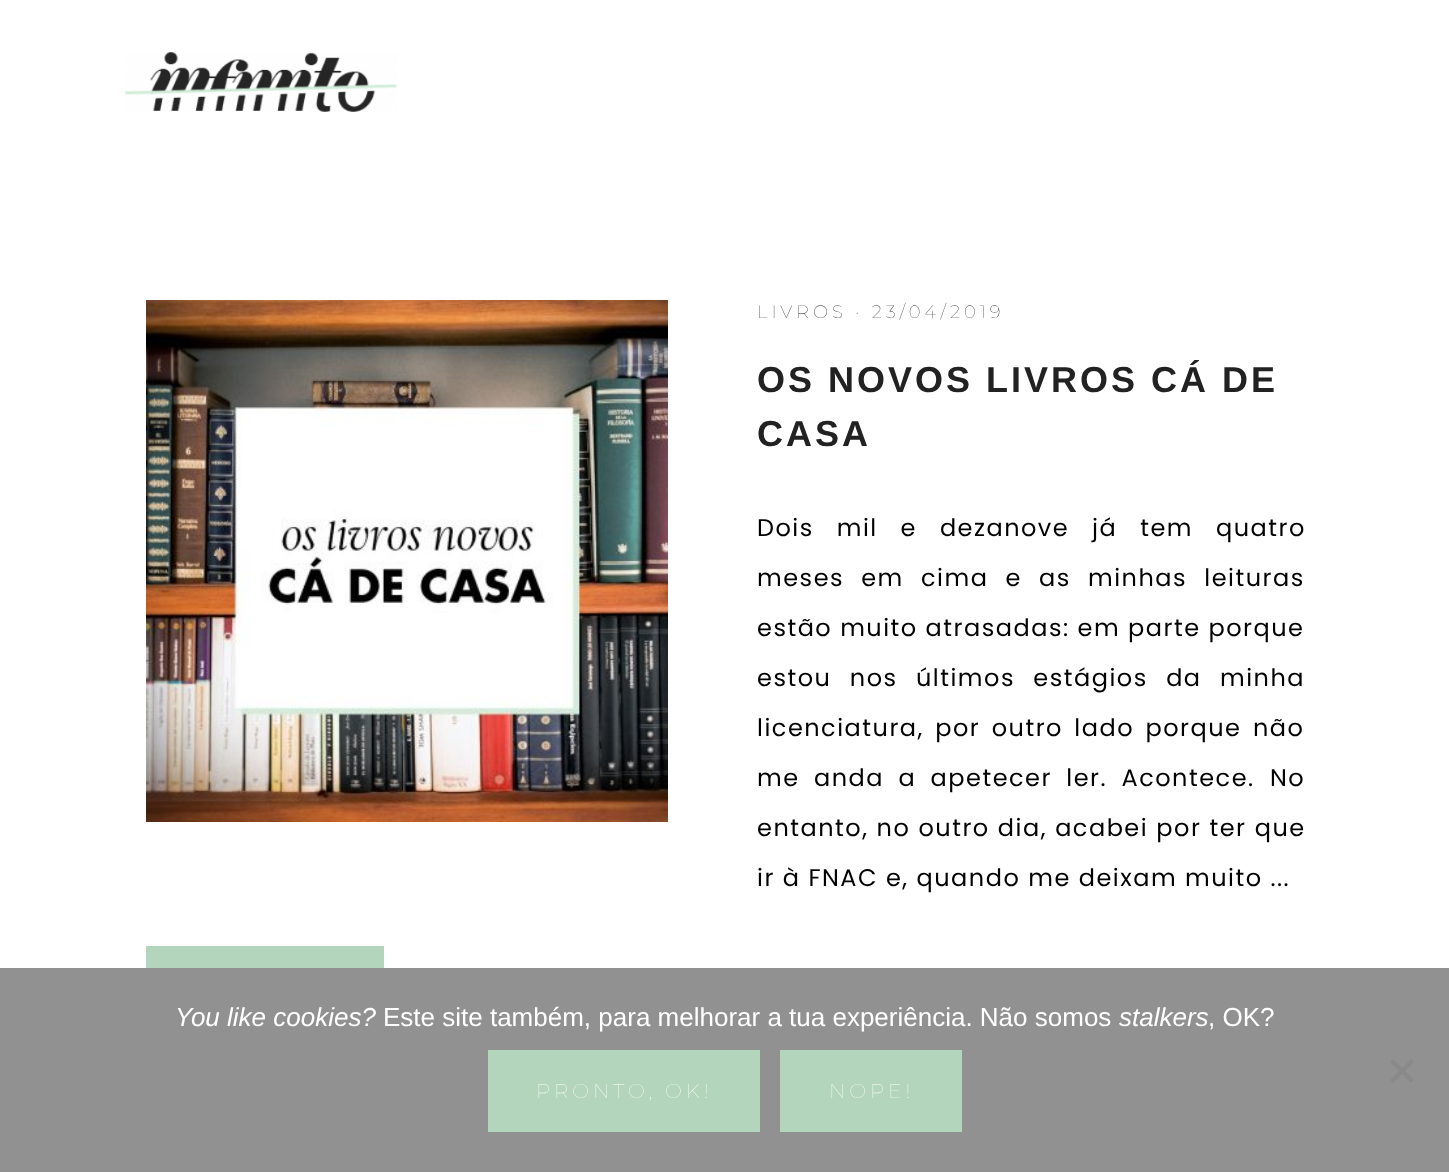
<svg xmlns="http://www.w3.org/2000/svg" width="1449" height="1172">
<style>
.a{font:100 18px Montserrat;letter-spacing:4px;fill:#222}
.b{font:bold 36px Liberation Sans;letter-spacing:3px;fill:#222}
.c{font:24px Poppins;letter-spacing:1.5px;fill:#000}
.d{font:italic 26px Liberation Sans;fill:#fff}
.e{font:26px Liberation Sans;fill:#fff}
.f{font:100 20px Montserrat;letter-spacing:4px;fill:#fff}
</style>
<rect width="100%" height="100%" fill="#fff"/>
<image href="1.png" x="124" y="52" width="274" height="60"/>
<image href="2.png" x="146" y="300" width="522" height="522"/>
<path fill="#b3d5bc" d="M146 946h238v22H146z"/>
<path fill="#919191" d="M0 968h1449v204H0z"/>
<path fill="#898989" d="M1411 1059l3 3l-21 21l-3-3z"/>
<path fill="#898989" d="M1390 1062l3-3l21 21l-3 3z"/>
<path fill="#b3d5bc" d="M488 1050h272v82H488z"/>
<path fill="#b3d5bc" d="M780 1050h182v82H780z"/>
<text class="a" x="757" y="318">LIVROS · 23/04/2019</text>
<text class="b" x="757" y="392">OS NOVOS LIVROS CÁ DE</text>
<text class="b" x="757" y="446">CASA</text>
<text class="c" x="757" y="536" word-spacing="15">Dois mil e dezanove já tem quatro</text>
<text class="c" x="757" y="586" word-spacing="9.25">meses em cima e as minhas leituras</text>
<text class="c" x="757" y="636">estão muito atrasadas: em parte porque</text>
<text class="c" x="757" y="686" word-spacing="10.5">estou nos últimos estágios da minha</text>
<text class="c" x="757" y="736" word-spacing="3.5">licenciatura, por outro lado porque não</text>
<text class="c" x="757" y="786" word-spacing="6.5">me anda a apetecer ler. Acontece.</text>
<text class="c" x="1270" y="786">No</text>
<text class="c" x="757" y="836" word-spacing="0.25">entanto, no outro dia, acabei por ter que</text>
<text class="c" x="757" y="886">ir à FNAC e, quando me deixam muito ...</text>
<text class="d" x="175" y="1026">You like cookies?</text>
<text class="e" x="383" y="1026">Este site também, para melhorar a tua experiência. Não somos</text>
<text class="d" x="1119" y="1026">stalkers</text>
<text class="e" x="1208" y="1026">, OK?</text>
<text class="f" x="536" y="1098">PRONTO, OK!</text>
<text class="f" x="829" y="1098">NOPE!</text>
</svg>
